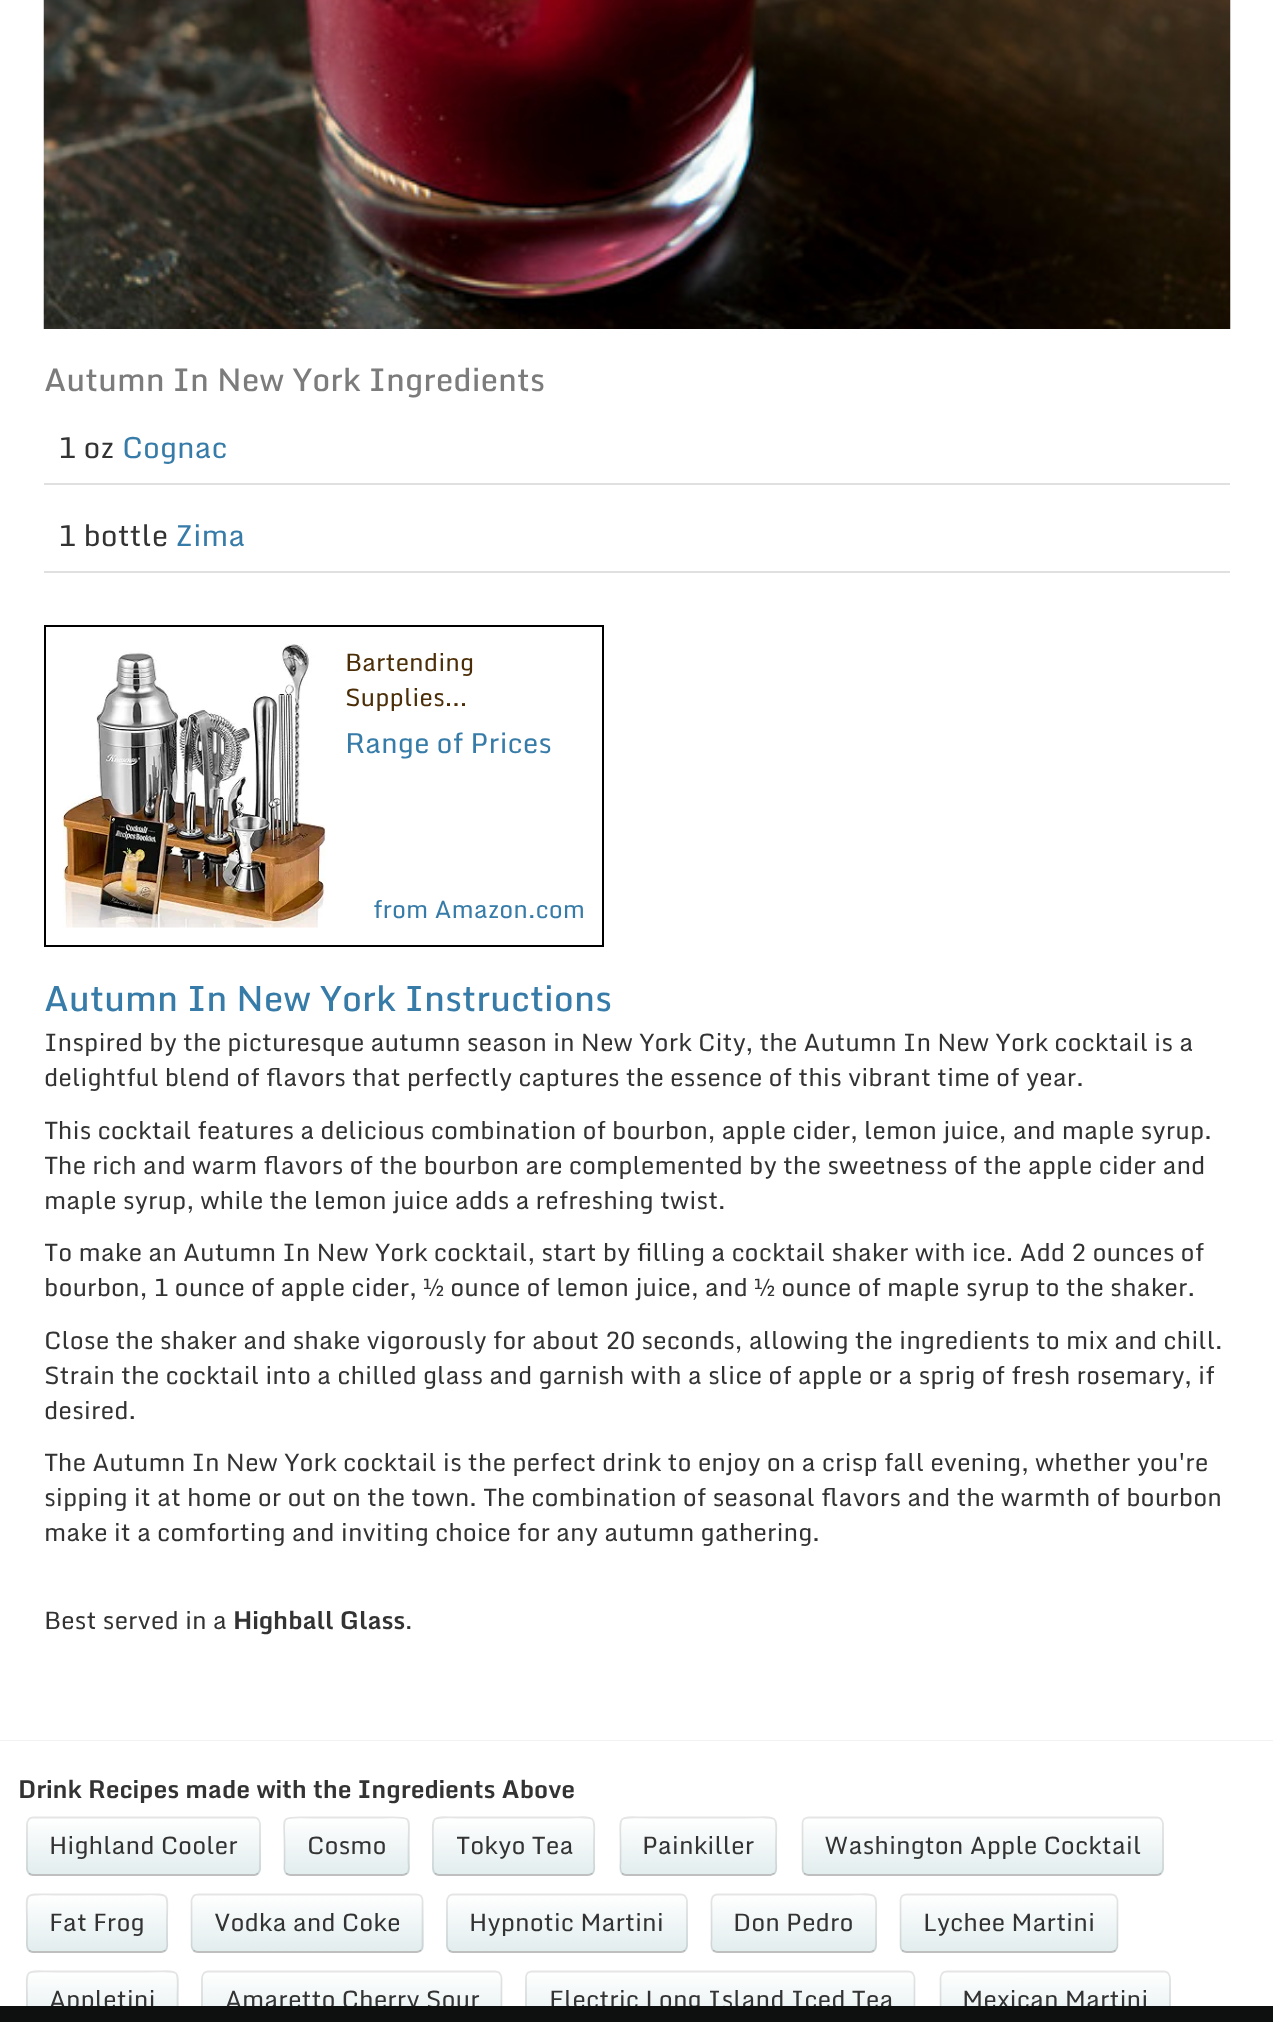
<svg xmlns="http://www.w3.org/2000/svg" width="1273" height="2022">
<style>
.a{font:500 31.5px Monda;fill:#7c7c7c}
.b{font:29.5px Monda;fill:#333}
.c{font:29.5px Monda;fill:#377ca8}
.d{font:24.5px Monda;fill:#4b2e07}
.e{font:28px Monda;fill:#377ca8}
.f{font:24.5px Monda;fill:#377ca8}
.g{font:500 35px Monda;fill:#377ca8}
.h{font:24.5px Monda;fill:#333}
.i{font:bold 24.5px Monda;fill:#333}
</style>
<defs>
<clipPath id="clip1"><rect x="26" y="1817" width="235" height="59" rx="7"/></clipPath>
<linearGradient id="g1" gradientUnits="userSpaceOnUse" x1="144" y1="1818" x2="144" y2="1874"><stop offset="0" stop-color="#fff"/><stop offset="1" stop-color="#e2edee"/></linearGradient>
<clipPath id="clip2"><rect x="284" y="1817" width="126" height="59" rx="7"/></clipPath>
<linearGradient id="g2" gradientUnits="userSpaceOnUse" x1="347" y1="1818" x2="347" y2="1874"><stop offset="0" stop-color="#fff"/><stop offset="1" stop-color="#e2edee"/></linearGradient>
<clipPath id="clip3"><rect x="432" y="1817" width="163" height="59" rx="7"/></clipPath>
<linearGradient id="g3" gradientUnits="userSpaceOnUse" x1="514" y1="1818" x2="514" y2="1874"><stop offset="0" stop-color="#fff"/><stop offset="1" stop-color="#e2edee"/></linearGradient>
<clipPath id="clip4"><rect x="620" y="1817" width="157" height="59" rx="7"/></clipPath>
<linearGradient id="g4" gradientUnits="userSpaceOnUse" x1="698" y1="1818" x2="698" y2="1874"><stop offset="0" stop-color="#fff"/><stop offset="1" stop-color="#e2edee"/></linearGradient>
<clipPath id="clip5"><rect x="802" y="1817" width="362" height="59" rx="7"/></clipPath>
<linearGradient id="g5" gradientUnits="userSpaceOnUse" x1="983" y1="1818" x2="983" y2="1874"><stop offset="0" stop-color="#fff"/><stop offset="1" stop-color="#e2edee"/></linearGradient>
<clipPath id="clip6"><rect x="26" y="1894" width="142" height="59" rx="7"/></clipPath>
<linearGradient id="g6" gradientUnits="userSpaceOnUse" x1="97" y1="1895" x2="97" y2="1951"><stop offset="0" stop-color="#fff"/><stop offset="1" stop-color="#e2edee"/></linearGradient>
<clipPath id="clip7"><rect x="191" y="1894" width="233" height="59" rx="7"/></clipPath>
<linearGradient id="g7" gradientUnits="userSpaceOnUse" x1="307" y1="1895" x2="307" y2="1951"><stop offset="0" stop-color="#fff"/><stop offset="1" stop-color="#e2edee"/></linearGradient>
<clipPath id="clip8"><rect x="446" y="1894" width="242" height="59" rx="7"/></clipPath>
<linearGradient id="g8" gradientUnits="userSpaceOnUse" x1="567" y1="1895" x2="567" y2="1951"><stop offset="0" stop-color="#fff"/><stop offset="1" stop-color="#e2edee"/></linearGradient>
<clipPath id="clip9"><rect x="711" y="1894" width="166" height="59" rx="7"/></clipPath>
<linearGradient id="g9" gradientUnits="userSpaceOnUse" x1="794" y1="1895" x2="794" y2="1951"><stop offset="0" stop-color="#fff"/><stop offset="1" stop-color="#e2edee"/></linearGradient>
<clipPath id="clip10"><rect x="900" y="1894" width="218" height="59" rx="7"/></clipPath>
<linearGradient id="g10" gradientUnits="userSpaceOnUse" x1="1009" y1="1895" x2="1009" y2="1951"><stop offset="0" stop-color="#fff"/><stop offset="1" stop-color="#e2edee"/></linearGradient>
<clipPath id="clip11"><rect x="26" y="1971" width="153" height="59" rx="7"/></clipPath>
<linearGradient id="g11" gradientUnits="userSpaceOnUse" x1="102" y1="1972" x2="102" y2="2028"><stop offset="0" stop-color="#fff"/><stop offset="1" stop-color="#e2edee"/></linearGradient>
<clipPath id="clip12"><rect x="201" y="1971" width="301" height="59" rx="7"/></clipPath>
<linearGradient id="g12" gradientUnits="userSpaceOnUse" x1="352" y1="1972" x2="352" y2="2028"><stop offset="0" stop-color="#fff"/><stop offset="1" stop-color="#e2edee"/></linearGradient>
<clipPath id="clip13"><rect x="525" y="1971" width="390" height="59" rx="7"/></clipPath>
<linearGradient id="g13" gradientUnits="userSpaceOnUse" x1="720" y1="1972" x2="720" y2="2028"><stop offset="0" stop-color="#fff"/><stop offset="1" stop-color="#e2edee"/></linearGradient>
<clipPath id="clip14"><rect x="940" y="1971" width="231" height="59" rx="7"/></clipPath>
<linearGradient id="g14" gradientUnits="userSpaceOnUse" x1="1055" y1="1972" x2="1055" y2="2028"><stop offset="0" stop-color="#fff"/><stop offset="1" stop-color="#e2edee"/></linearGradient>
</defs>
<rect width="100%" height="100%" fill="#fff"/>
<image href="1.png" x="43" y="0" width="1188" height="329"/>
<path fill="#e0e0e0" d="M44 483h1186v2H44z"/>
<path fill="#e0e0e0" d="M44 571h1186v2H44z"/>
<path fill="none" stroke="#000" stroke-width="2" d="M45 626h558v320H45z"/>
<image href="2.png" x="63" y="644" width="263" height="284"/>
<path fill="#f2f2f2" d="M-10 1741h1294c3 0 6 3 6 5c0-3-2-6-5-6h-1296c-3 0-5 3-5 6c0-2 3-5 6-5z"/>
<g clip-path="url(#clip1)">
<path fill="url(#g1)" d="M26 1818h235v56H26z"/>
</g>
<path fill="none" stroke="#00000040" stroke-width="1.8" d="M258 1873.5c-1 1-2.5 1.5-4 1.5h-221c-1.5 0-3-.5-4-1.5"/>
<path fill="none" stroke="#0000001a" stroke-width="1.8" d="M29 1873.5c-1-1.5-2-3-2-4.5v-45.5c0-1.5 1-3 2-4.5c1-1 2.5-1.5 4-1.5h221c1.5 0 3 .5 4 1.5c1 1.5 2 3 2 4.5v45.5c0 1.5-1 3-2 4.5"/>
<g clip-path="url(#clip2)">
<path fill="url(#g2)" d="M284 1818h126v56H284z"/>
</g>
<path fill="none" stroke="#00000040" stroke-width="1.8" d="M407 1873.5c-1.5 1-3 1.5-4.5 1.5h-112c-1.5 0-3-.5-4.5-1.5"/>
<path fill="none" stroke="#0000001a" stroke-width="1.8" d="M286 1873.5c-3-3-1.5-8.5-1.5-12v-15.5c0-31.5-6-28.5 24.5-28.5h75c30.5 0 24.5-3 24.5 28.5v15.5c0 3.5 1.5 9-1.5 12"/>
<g clip-path="url(#clip3)">
<path fill="url(#g3)" d="M432 1818h163v56H432z"/>
</g>
<path fill="none" stroke="#00000040" stroke-width="1.8" d="M592.5 1873.5c-1.5 1-3 1.5-4.5 1.5h-149c-1.5 0-3-.5-4-1.5"/>
<path fill="none" stroke="#0000001a" stroke-width="1.8" d="M435 1873.5c-3-3-2-8.5-2-12v-15.5c0-34-5-28.5 31-28.5h99c36.5 0 31-5.5 31 28.5v15.5c0 3.5 1.5 9-1.5 12"/>
<g clip-path="url(#clip4)">
<path fill="url(#g4)" d="M620 1818h157v56H620z"/>
</g>
<path fill="none" stroke="#00000040" stroke-width="1.8" d="M774.5 1873.5l-4 1.5h-144.5c-1.5 0-3-.5-4-1.5"/>
<path fill="none" stroke="#0000001a" stroke-width="1.8" d="M622 1873.5c-3-3-1.5-8.5-1.5-12v-15.5c0-33.5-5.5-28.5 30-28.5h95.5c35.5 0 30-5 30 28.5v15.5c0 3.5 1.5 9-1.5 12"/>
<g clip-path="url(#clip5)">
<path fill="url(#g5)" d="M802 1818h362v56H802z"/>
</g>
<path fill="none" stroke="#00000040" stroke-width="1.8" d="M1161 1873.5c-1 1-2.5 1.5-4 1.5h-348.5c-1.5 0-3-.5-4.5-1.5"/>
<path fill="none" stroke="#0000001a" stroke-width="1.8" d="M804 1873.5c-1-1.5-1.5-3-1.5-4.5v-45.5c0-1.5 .5-3 1.5-4.5c1.5-1 3-1.5 4.5-1.5h348.5c1.5 0 3 .5 4 1.5c1 1.5 2 3 2 4.5v45.5c0 1.5-1 3-2 4.5"/>
<g clip-path="url(#clip6)">
<path fill="url(#g6)" d="M26 1895h142v56H26z"/>
</g>
<path fill="none" stroke="#00000040" stroke-width="1.8" d="M165.5 1950.5c-1.5 1-3 1.5-4.5 1.5h-128c-1.5 0-3-.5-4-1.5"/>
<path fill="none" stroke="#0000001a" stroke-width="1.8" d="M29 1950.5c-3-3-2-8.5-2-12v-15.5c0-32.5-5.5-28.5 27.5-28.5h85c33 0 27.5-4 27.5 28.5v15.5c0 3.5 1.5 9-1.5 12"/>
<g clip-path="url(#clip7)">
<path fill="url(#g7)" d="M191 1895h233v56H191z"/>
</g>
<path fill="none" stroke="#00000040" stroke-width="1.8" d="M421 1950.5c-1.5 1-3 1.5-4.5 1.5h-218.5c-2 0-3.5-.5-4.5-1.5"/>
<path fill="none" stroke="#0000001a" stroke-width="1.8" d="M193.5 1950.5c-1-1.5-2-3-2-4.5v-45.5c0-1.5 1-3 2-4.5c1-1 2.5-1.5 4.5-1.5h218.5c1.5 0 3 .5 4.5 1.5c1 1.5 1.5 3 1.5 4.5v45.5c0 1.5-.5 3-1.5 4.5"/>
<g clip-path="url(#clip8)">
<path fill="url(#g8)" d="M446 1895h242v56H446z"/>
</g>
<path fill="none" stroke="#00000040" stroke-width="1.8" d="M685 1950.5c-1 1-2.5 1.5-4 1.5h-228c-1.5 0-3-.5-4-1.5"/>
<path fill="none" stroke="#0000001a" stroke-width="1.8" d="M449 1950.5c-1-1.5-2-3-2-4.5v-45.5c0-1.5 1-3 2-4.5c1-1 2.5-1.5 4-1.5h228c1.5 0 3 .5 4 1.5c1 1.5 2 3 2 4.5v45.5c0 1.5-1 3-2 4.5"/>
<g clip-path="url(#clip9)">
<path fill="url(#g9)" d="M711 1895h166v56H711z"/>
</g>
<path fill="none" stroke="#00000040" stroke-width="1.8" d="M874 1950.5c-1 1-2.5 1.5-4 1.5h-152.5c-1.5 0-3-.5-4.5-1.5"/>
<path fill="none" stroke="#0000001a" stroke-width="1.8" d="M713 1950.5c-3-3-1.5-8.5-1.5-12v-30.5c0-4.5-1.5-13.5 6-13.5h127c36.5 0 31.5-5.5 31.5 28.5v15.5c0 3.5 1 9-2 12"/>
<g clip-path="url(#clip10)">
<path fill="url(#g10)" d="M900 1895h218v56H900z"/>
</g>
<path fill="none" stroke="#00000040" stroke-width="1.8" d="M1115.5 1950.5c-1 1-2.5 1.5-4.5 1.5h-204.5c-1.5 0-3-.5-4.5-1.5"/>
<path fill="none" stroke="#0000001a" stroke-width="1.8" d="M902 1950.5c-1-1.5-1.5-3-1.5-4.5v-45.5c0-1.5 .5-3 1.5-4.5c1.5-1 3-1.5 4.5-1.5h204.5c2 0 3.5 .5 4.5 1.5c1 1.5 2 3 2 4.5v45.5c0 1.5-1 3-2 4.5"/>
<g clip-path="url(#clip11)">
<path fill="url(#g11)" d="M26 1972h153v34H26z"/>
</g>
<path fill="none" stroke="#0000001a" stroke-width="1.8" d="M29 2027.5c-3-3-2-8.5-2-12v-15.5c0-33.5-5-28.5 29.5-28.5h92c34.5 0 29-5 29 28.5v15.5c0 3.5 1.5 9-1.5 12"/>
<g clip-path="url(#clip12)">
<path fill="url(#g12)" d="M201 1972h301v34H201z"/>
</g>
<path fill="none" stroke="#0000001a" stroke-width="1.8" d="M204 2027.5c-1-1.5-2-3-2-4.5v-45.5c0-1.5 1-3 2-4.5c1-1 2.5-1.5 4-1.5h287c2 0 3.5 .5 4.5 1.5c1 1.5 2 3 2 4.5v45.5c0 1.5-1 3-2 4.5"/>
<g clip-path="url(#clip13)">
<path fill="url(#g13)" d="M525 1972h390v34H525z"/>
</g>
<path fill="none" stroke="#0000001a" stroke-width="1.8" d="M527.5 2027.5c-1-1.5-1.5-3-1.5-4.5v-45.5c0-1.5 .5-3 1.5-4.5c1.5-1 3-1.5 4.5-1.5h376c2 0 3.5 .5 4.5 1.5c1 1.5 2 3 2 4.5v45.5c0 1.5-1 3-2 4.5"/>
<g clip-path="url(#clip14)">
<path fill="url(#g14)" d="M940 1972h231v34H940z"/>
</g>
<path fill="none" stroke="#0000001a" stroke-width="1.8" d="M942.5 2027.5c-1-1.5-2-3-2-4.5v-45.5c0-1.5 1-3 2-4.5c1-1 2.5-1.5 4.5-1.5h217c1.5 0 3 .5 4 1.5c1 1.5 2 3 2 4.5v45.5c0 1.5-1 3-2 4.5"/>
<text class="a" x="44" y="391">Autumn In New York Ingredients</text>
<text class="b" x="58" y="458">1 oz</text>
<text class="c" x="122" y="458">Cognac</text>
<text class="b" x="58" y="546">1 bottle</text>
<text class="c" x="175" y="546">Zima</text>
<text class="d" x="345" y="671">Bartending</text>
<text class="d" x="345" y="706">Supplies...</text>
<text class="e" x="345" y="753">Range of Prices</text>
<text class="f" x="373" y="918">from Amazon.com</text>
<text class="g" x="44" y="1011">Autumn In New York Instructions</text>
<text class="h" x="44" y="1051">Inspired by the picturesque autumn season in New York City, the Autumn In New York cocktail is a</text>
<text class="h" x="44" y="1086">delightful blend of flavors that perfectly captures the essence of this vibrant time of year.</text>
<text class="h" x="44" y="1139">This cocktail features a delicious combination of bourbon, apple cider, lemon juice, and maple syrup.</text>
<text class="h" x="44" y="1174">The rich and warm flavors of the bourbon are complemented by the sweetness of the apple cider and</text>
<text class="h" x="44" y="1209">maple syrup, while the lemon juice adds a refreshing twist.</text>
<text class="h" x="44" y="1261">To make an Autumn In New York cocktail, start by filling a cocktail shaker with ice. Add 2 ounces of</text>
<text class="h" x="44" y="1296">bourbon, 1 ounce of apple cider, ½ ounce of lemon juice, and ½ ounce of maple syrup to the shaker.</text>
<text class="h" x="44" y="1349">Close the shaker and shake vigorously for about 20 seconds, allowing the ingredients to mix and chill.</text>
<text class="h" x="44" y="1384">Strain the cocktail into a chilled glass and garnish with a slice of apple or a sprig of fresh rosemary, if</text>
<text class="h" x="44" y="1419">desired.</text>
<text class="h" x="44" y="1471">The Autumn In New York cocktail is the perfect drink to enjoy on a crisp fall evening, whether you're</text>
<text class="h" x="44" y="1506">sipping it at home or out on the town. The combination of seasonal flavors and the warmth of bourbon</text>
<text class="h" x="44" y="1541">make it a comforting and inviting choice for any autumn gathering.</text>
<text class="h" x="44" y="1629">Best served in a</text>
<text class="i" x="233" y="1629">Highball Glass</text>
<text class="h" x="405" y="1629">.</text>
<text class="i" x="18" y="1798">Drink Recipes made with the Ingredients Above</text>
<text class="h" x="49" y="1854">Highland Cooler</text>
<text class="h" x="307" y="1854">Cosmo</text>
<text class="h" x="456" y="1854">Tokyo Tea</text>
<text class="h" x="642" y="1854">Painkiller</text>
<text class="h" x="824" y="1854">Washington Apple Cocktail</text>
<text class="h" x="49" y="1931">Fat Frog</text>
<text class="h" x="214" y="1931">Vodka and Coke</text>
<text class="h" x="469" y="1931">Hypnotic Martini</text>
<text class="h" x="733" y="1931">Don Pedro</text>
<text class="h" x="923" y="1931">Lychee Martini</text>
<text class="h" x="49" y="2008">Appletini</text>
<text class="h" x="225" y="2008">Amaretto Cherry Sour</text>
<text class="h" x="549" y="2008">Electric Long Island Iced Tea</text>
<text class="h" x="962" y="2008">Mexican Martini</text>
<path fill="#0e0f0f" d="M0 2006h1273v16H0z"/>
</svg>
